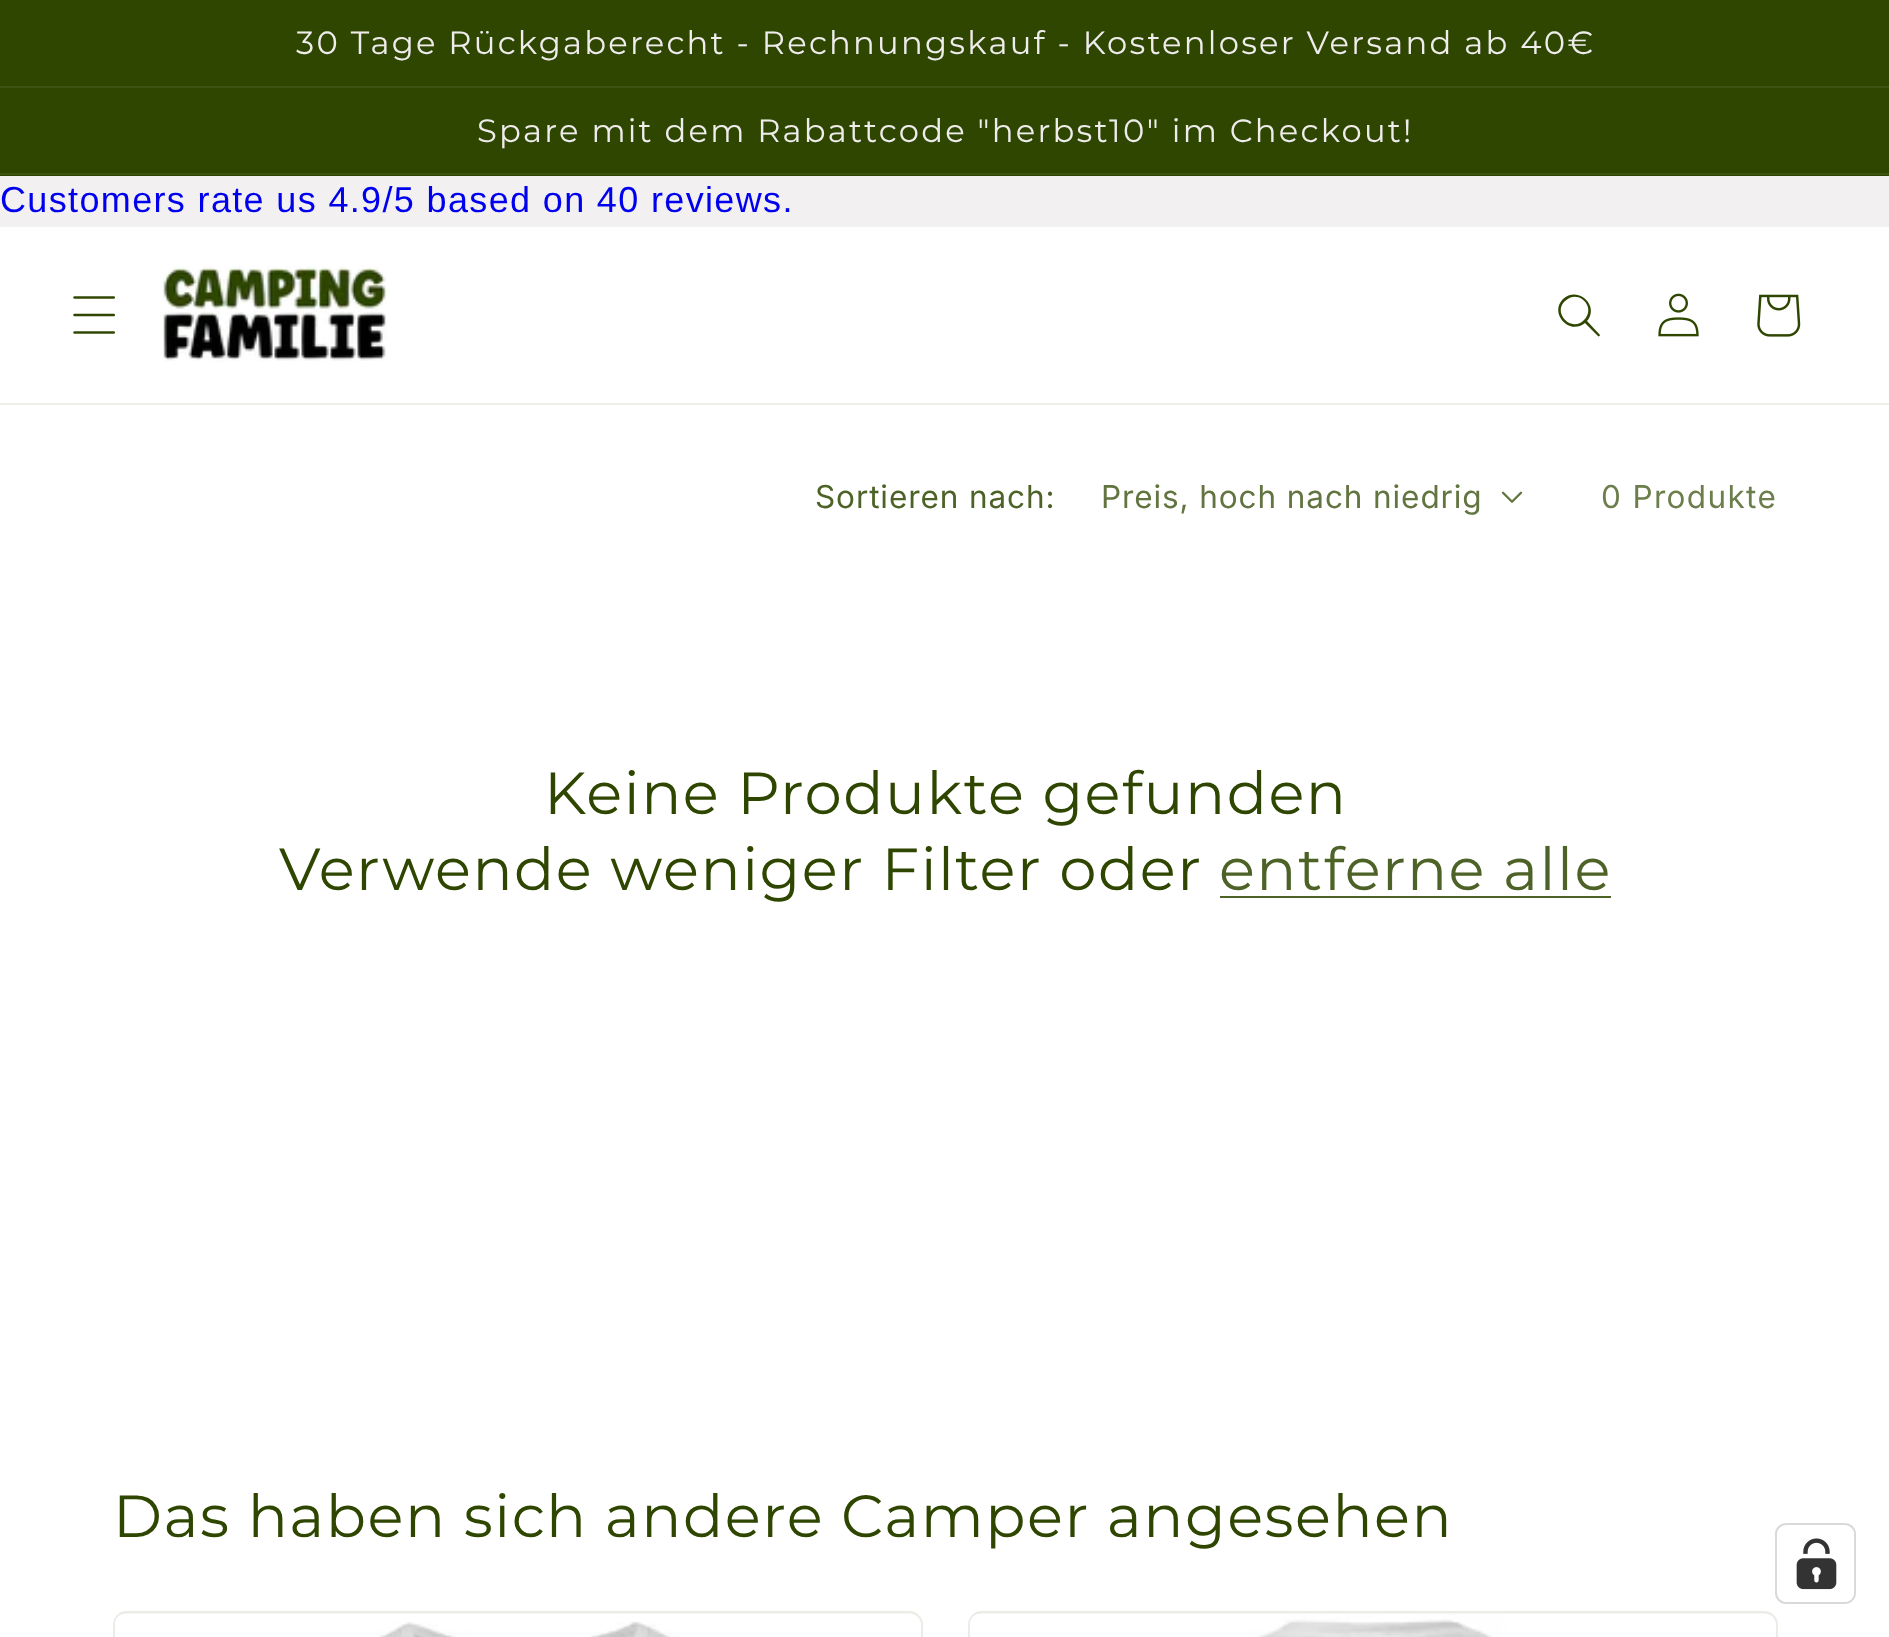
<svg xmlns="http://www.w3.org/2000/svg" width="1889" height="1637">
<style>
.a{font:32.2px Montserrat;letter-spacing:2.25px;fill:#efecec}
.b{font:36px Liberation Sans;letter-spacing:1.35px;fill:#00e}
.c{font:31.5px Inter;letter-spacing:0.9px;fill:#4d6226}
.d{font:31.5px Inter;letter-spacing:0.9px;fill:#627440}
.e{font:31.5px Inter;letter-spacing:1.35px;fill:#6d7e4d}
.f{font:59.4px Montserrat;letter-spacing:1.5px;fill:#2e4600}
.g{font:59.4px Montserrat;letter-spacing:1.5px;fill:#4d6226}
</style>
<rect width="100%" height="100%" fill="#f2f0f0"/>
<path fill="#2e4600" d="M0 0h1889v86H0z"/>
<path fill="#3d5313" d="M0 86h1889v2H0z"/>
<path fill="#2e4600" d="M0 88h1889v88H0z"/>
<path fill="#3d5313" d="M0 173h1889v2H0z"/>
<path fill="#fff" d="M0 227h1889v176H0z"/>
<path fill="#eef0eb" d="M0 403h1889v2H0z"/>
<image href="1.png" x="73" y="296" width="42" height="38"/>
<image href="2.png" x="162" y="266" width="225" height="96"/>
<path fill="#2e4600" fill-rule="evenodd" d="M1584 320c-12 13-32-7-19-19c13-13 32 6 19 19m1 3c-16 13-36-10-22-24c15-14 37 7 24 22l13 14c0 1-2 2-2 1z"/>
<image href="3.png" x="1658" y="293" width="41" height="44"/>
<image href="4.png" x="1757" y="294" width="44" height="43"/>
<path fill="#fff" d="M0 405h1889v1232H0z"/>
<image href="5.png" x="1501" y="491" width="22" height="12"/>
<path fill="#4d6226" d="M1220 896h391v2H1220z"/>
<rect fill="none" stroke="#eaede6" stroke-width="2" x="114" y="1612" width="808" height="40" rx="13"/>
<rect fill="#2e46001a" x="115" y="1613" width="805" height="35" rx="11"/>
<image href="6.png" x="115" y="1613" width="805" height="24"/>
<rect fill="none" stroke="#eaede6" stroke-width="2" x="969" y="1612" width="808" height="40" rx="13"/>
<rect fill="#2e46001a" x="970" y="1613" width="805" height="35" rx="11"/>
<image href="7.png" x="970" y="1613" width="805" height="24"/>
<rect fill="none" stroke="#d9d9d9" stroke-width="2" x="1776" y="1524" width="79" height="79" rx="10"/>
<rect fill="#fff" x="1778" y="1526" width="76" height="76" rx="9"/>
<image href="8.png" x="1796" y="1538" width="41" height="52"/>
<text class="a" x="296" y="54">30 Tage Rückgaberecht - Rechnungskauf - Kostenloser Versand ab 40€</text>
<text class="a" x="477" y="142">Spare mit dem Rabattcode "herbst10" im Checkout!</text>
<text class="b" x="0" y="212">Customers rate us 4.9/5 based on 40 reviews.</text>
<text class="c" x="815" y="508">Sortieren nach:</text>
<text class="d" x="1101" y="508">Preis, hoch nach niedrig</text>
<text class="e" x="1601" y="508">0 Produkte</text>
<text class="f" x="544" y="814">Keine Produkte gefunden</text>
<text class="f" x="279" y="890">Verwende weniger Filter oder</text>
<text class="g" x="1219" y="890">entferne alle</text>
<text class="f" x="113" y="1537">Das haben sich andere Camper angesehen</text>
</svg>
